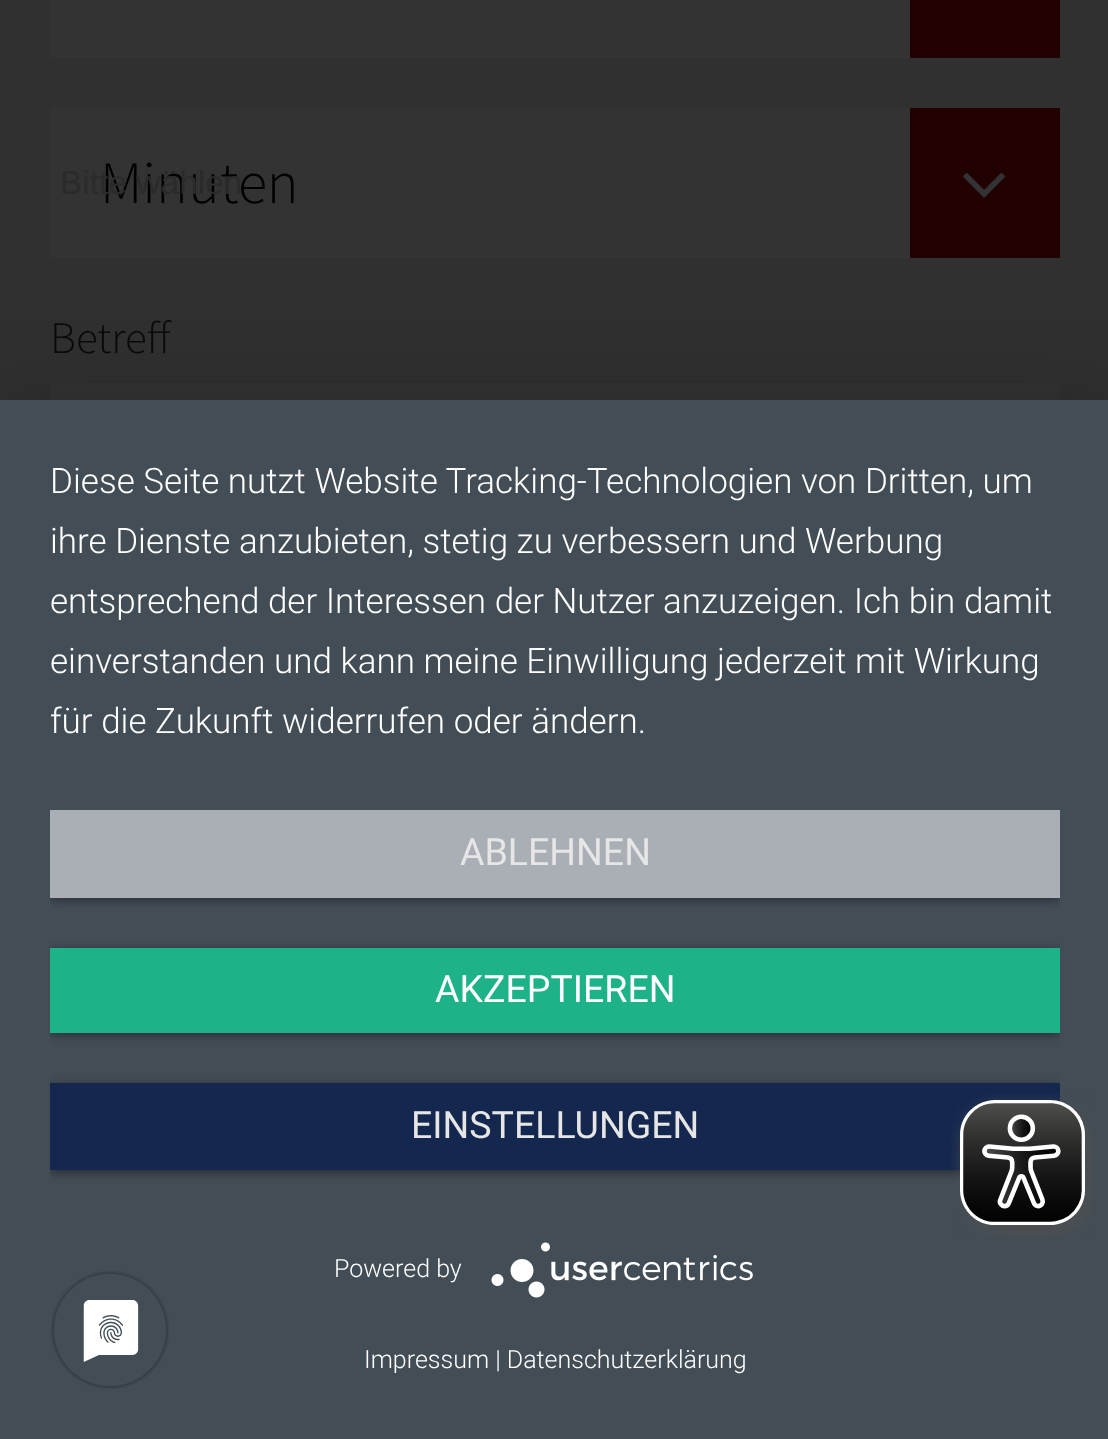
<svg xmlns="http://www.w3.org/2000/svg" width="1108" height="1439">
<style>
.a{font:300 60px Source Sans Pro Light;fill:#000}
.b{font:33.5px Liberation Sans;fill:#2b2b2b}
.c{font:300 45px Source Sans Pro Light;fill:#0a0a0a}
.d{font:300 35px Roboto;fill:#fff}
.e{font:37.5px Roboto;fill:#e6e6e6}
.f{font:37.5px Roboto;fill:#fff}
.g{font:300 25px Roboto;fill:#fff}
</style>
<defs>
<clipPath id="clip1"><path d="M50 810h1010v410H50z"/></clipPath>
</defs>
<rect width="100%" height="100%" fill="#303030"/>
<path fill="#333" d="M50 0h860v58H50z"/>
<path fill="#220200" d="M910 0h150v58H910z"/>
<path fill="#333" d="M50 108h860v150H50z"/>
<path fill="#220200" d="M910 108h150v150H910z"/>
<image href="1.png" x="963" y="173" width="42" height="25"/>
<path fill="#333" d="M50 383h1010v17H50z"/>
<path fill="#0000004d" filter="blur(45px)" d="M0 415h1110v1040H0z"/>
<path fill="#424d56" d="M0 400h1108v1039H0z"/>
<g clip-path="url(#clip1)">
<path fill="#00000066" filter="blur(5px)" d="M50 813h1010v87H50z"/>
</g>
<path fill="#a9afb5" d="M50 810h1010v88H50z"/>
<g clip-path="url(#clip1)">
<path fill="#00000066" filter="blur(5px)" d="M50 950h1010v85H50z"/>
</g>
<path fill="#1db288" d="M50 948h1010v85H50z"/>
<g clip-path="url(#clip1)">
<path fill="#00000066" filter="blur(5px)" d="M50 1085h1010v88H50z"/>
</g>
<path fill="#14274f" d="M50 1083h1010v87H50z"/>
<image href="2.png" x="491" y="1242" width="262" height="56"/>
<image href="3.png" x="51" y="1271" width="118" height="118"/>
<image href="4.png" x="951" y="1093" width="145" height="146"/>
<text class="a" x="100" y="203">Minuten</text>
<text class="b" x="60" y="194">Bitte wählen</text>
<text class="c" x="50" y="353">Betreff</text>
<text class="d" x="50" y="493">Diese Seite nutzt Website Tracking-Technologien von Dritten, um</text>
<text class="d" x="50" y="553">ihre Dienste anzubieten, stetig zu verbessern und Werbung</text>
<text class="d" x="50" y="613">entsprechend der Interessen der Nutzer anzuzeigen. Ich bin damit</text>
<text class="d" x="50" y="673">einverstanden und kann meine Einwilligung jederzeit mit Wirkung</text>
<text class="d" x="50" y="733">für die Zukunft widerrufen oder ändern.</text>
<text class="e" x="460" y="865">ABLEHNEN</text>
<text class="f" x="435" y="1002">AKZEPTIEREN</text>
<text class="e" x="411" y="1138">EINSTELLUNGEN</text>
<text class="g" x="334" y="1277">Powered by</text>
<text class="g" x="364" y="1368">Impressum | Datenschutzerklärung</text>
</svg>
